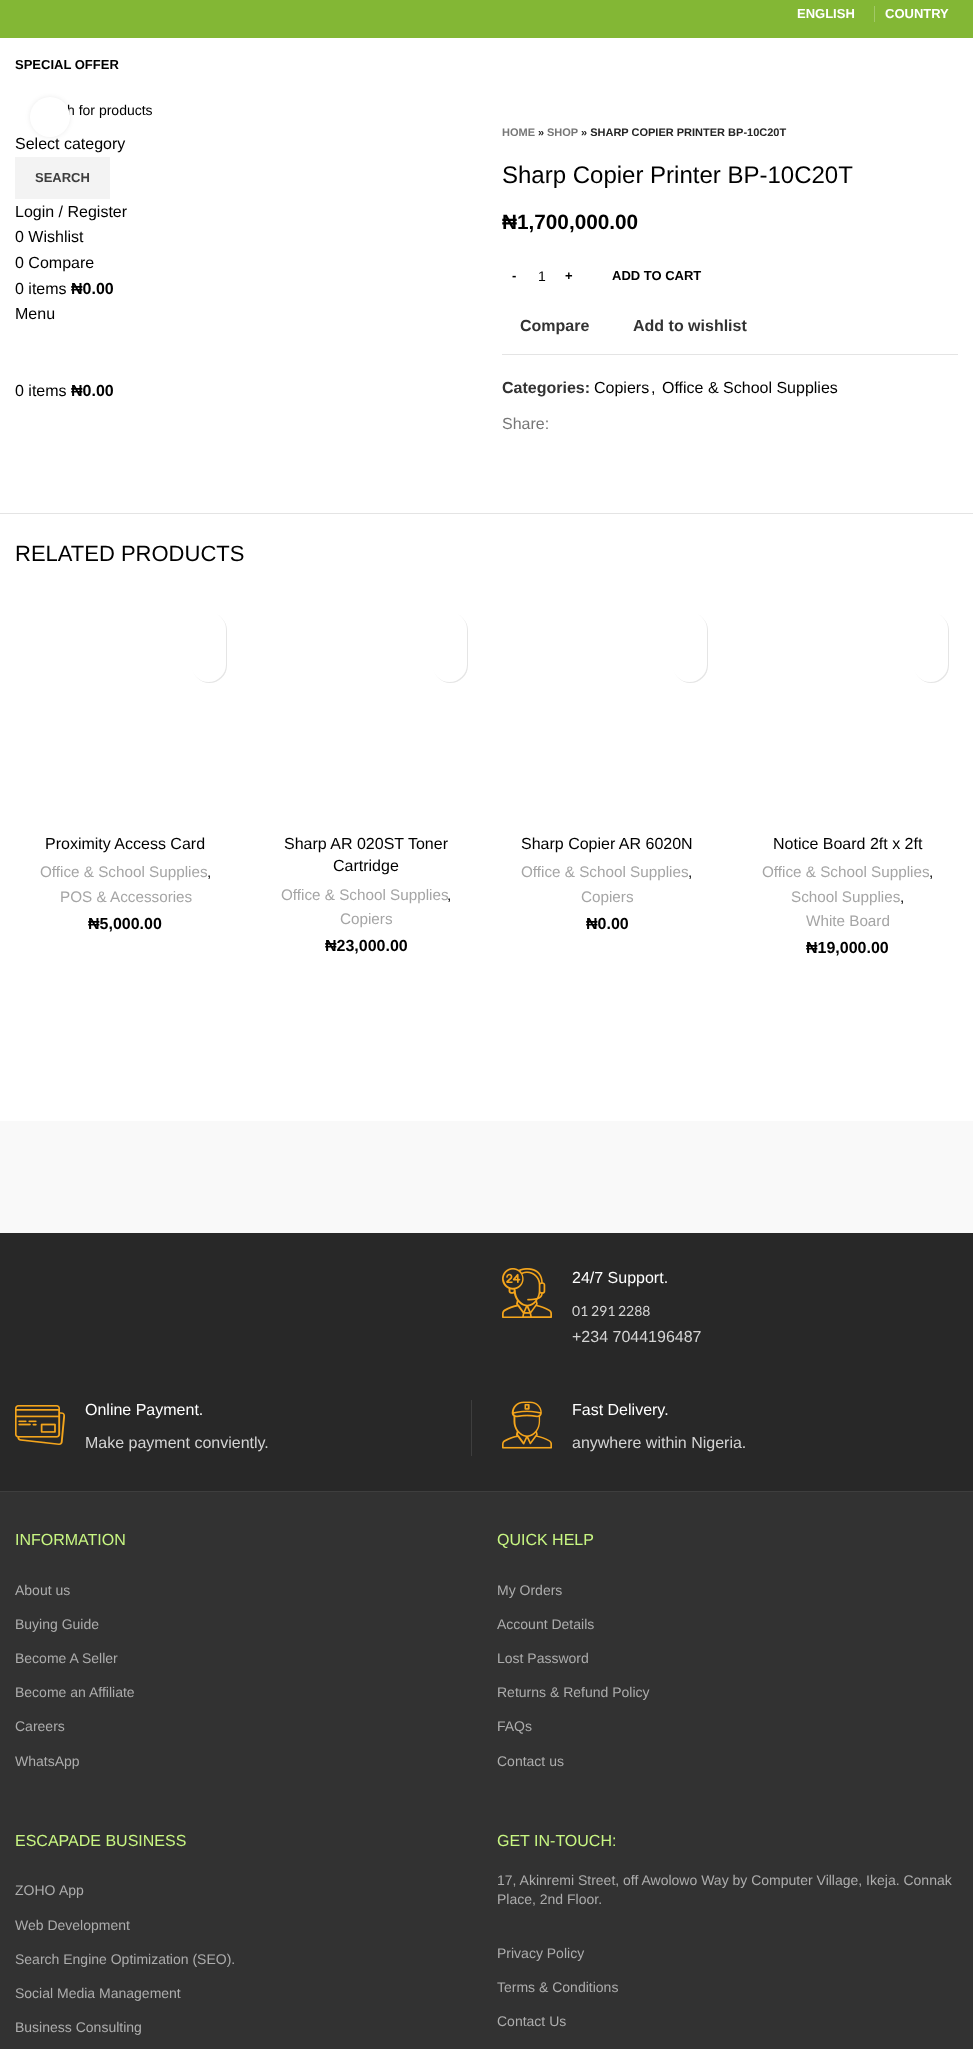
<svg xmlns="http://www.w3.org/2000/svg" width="973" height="2049">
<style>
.a{font:bold 13px Liberation Sans;fill:#fff}
.b{font:bold 13px Liberation Sans;fill:#000}
.c{font:14px Liberation Sans;fill:#000}
.d{font:16px Liberation Sans;fill:#000}
.e{font:bold 13px Liberation Sans;fill:#3e3e3e}
.f{font:bold 16px Liberation Sans;fill:#000}
.g{font:bold 11px Liberation Sans;fill:#777}
.h{font:bold 11px Liberation Sans;fill:#242424}
.i{font:24px Liberation Sans;fill:#000}
.j{font:bold 20.75px Liberation Sans;fill:#000}
.k{font:bold 16px Liberation Sans;fill:#333}
.l{font:16px Liberation Sans;fill:#777}
.m{font:22px Liberation Sans;fill:#000}
.n{font:15.25px Liberation Sans;fill:#a5a5a5}
.o{font:15.25px Liberation Sans;fill:#000}
.p{font:16px Liberation Sans;fill:#fff}
.q{font:14px Lato;fill:#d4d4d4}
.r{font:16px Liberation Sans;fill:#d4d4d4}
.s{font:16px Liberation Sans;fill:#c8f682}
.t{font:14px Liberation Sans;fill:#adadad}
</style>
<rect width="100%" height="100%" fill="#fff"/>
<path fill="#83b735" d="M0 0h973v38H0z"/>
<path fill="#a2c968" d="M874 6h1v16H874z"/>
<path fill="#f3f3f3" d="M15 157h95v42H15z"/>
<rect fill="#00000014" filter="blur(2.5px)" x="30" y="97" width="40" height="40" rx="20"/>
<path fill="#e4e4e4" d="M502 354h456v1H502z"/>
<path fill="#e4e4e4" d="M0 513h973v1H0z"/>
<rect fill="#0000001a" filter="blur(0.5px)" x="192" y="613" width="35" height="70" rx="17.5"/>
<rect fill="#fff" x="191" y="612" width="35" height="70" rx="17.5"/>
<rect fill="#0000001a" filter="blur(0.5px)" x="433" y="613" width="35" height="70" rx="17.5"/>
<rect fill="#fff" x="432" y="612" width="35" height="70" rx="17.5"/>
<rect fill="#0000001a" filter="blur(0.5px)" x="673" y="613" width="35" height="70" rx="17.5"/>
<rect fill="#fff" x="672" y="612" width="35" height="70" rx="17.5"/>
<rect fill="#0000001a" filter="blur(0.5px)" x="914" y="613" width="35" height="70" rx="17.5"/>
<rect fill="#fff" x="913" y="612" width="35" height="70" rx="17.5"/>
<path fill="#f9f9f9" d="M0 1121h973v112H0z"/>
<path fill="#282828" d="M0 1233h973v258H0z"/>
<path fill="#3e3e3e" d="M0 1491h973v1H0z"/>
<image href="1.png" x="502" y="1268" width="50" height="50"/>
<path fill="#3e3e3e" d="M471 1400h1v56H471z"/>
<image href="2.png" x="15" y="1405" width="50" height="40"/>
<image href="3.png" x="502" y="1401" width="50" height="48"/>
<path fill="#323232" d="M0 1492h973v557H0z"/>
<text class="a" x="797" y="18">ENGLISH</text>
<text class="a" x="885" y="18">COUNTRY</text>
<text class="b" x="15" y="69">SPECIAL OFFER</text>
<text class="c" x="67" y="115">h for products</text>
<text class="d" x="15" y="149">Select category</text>
<text class="e" x="35" y="182">SEARCH</text>
<text class="d" x="15" y="217">Login / Register</text>
<text class="d" x="15" y="242">0 Wishlist</text>
<text class="d" x="15" y="268">0 Compare</text>
<text class="d" x="15" y="294">0 items</text>
<text class="f" x="71" y="294">₦0.00</text>
<text class="d" x="15" y="319">Menu</text>
<text class="d" x="15" y="396">0 items</text>
<text class="f" x="71" y="396">₦0.00</text>
<circle fill="#fff" cx="50" cy="117" r="20"/>
<text class="g" x="502" y="136">HOME</text>
<text class="h" x="538" y="136">»</text>
<text class="g" x="547" y="136">SHOP</text>
<text class="h" x="581" y="136">» SHARP COPIER PRINTER BP-10C20T</text>
<text class="i" x="502" y="183">Sharp Copier Printer BP-10C20T</text>
<text class="j" x="502" y="229">₦1,700,000.00</text>
<text class="b" x="512" y="280">-</text>
<text class="c" x="538" y="281">1</text>
<text class="b" x="565" y="280">+</text>
<text class="b" x="612" y="280">ADD TO CART</text>
<text class="k" x="520" y="331">Compare</text>
<text class="k" x="633" y="331">Add to wishlist</text>
<text class="k" x="502" y="393">Categories:</text>
<text class="d" x="594" y="393">Copiers</text>
<text class="d" x="651" y="393">,</text>
<text class="d" x="662" y="393">Office &amp; School Supplies</text>
<text class="l" x="502" y="429">Share:</text>
<text class="m" x="15" y="561">RELATED PRODUCTS</text>
<text class="d" x="45" y="849">Proximity Access Card</text>
<text class="n" x="40" y="877">Office &amp; School Supplies</text>
<text class="o" x="207" y="877">,</text>
<text class="n" x="60" y="902">POS &amp; Accessories</text>
<text class="f" x="88" y="929">₦5,000.00</text>
<text class="d" x="284" y="849">Sharp AR 020ST Toner</text>
<text class="d" x="333" y="871">Cartridge</text>
<text class="n" x="281" y="900">Office &amp; School Supplies</text>
<text class="o" x="447" y="900">,</text>
<text class="n" x="340" y="924">Copiers</text>
<text class="f" x="325" y="951">₦23,000.00</text>
<text class="d" x="521" y="849">Sharp Copier AR 6020N</text>
<text class="n" x="521" y="877">Office &amp; School Supplies</text>
<text class="o" x="688" y="877">,</text>
<text class="n" x="581" y="902">Copiers</text>
<text class="f" x="586" y="929">₦0.00</text>
<text class="d" x="773" y="849">Notice Board 2ft x 2ft</text>
<text class="n" x="762" y="877">Office &amp; School Supplies</text>
<text class="o" x="929" y="877">,</text>
<text class="n" x="791" y="902">School Supplies</text>
<text class="o" x="900" y="902">,</text>
<text class="n" x="806" y="926">White Board</text>
<text class="f" x="806" y="953">₦19,000.00</text>
<text class="p" x="572" y="1283">24/7 Support.</text>
<text class="q" x="572" y="1316">01 291 2288</text>
<text class="r" x="572" y="1342">+234 7044196487</text>
<text class="p" x="85" y="1415">Online Payment.</text>
<text class="r" x="85" y="1448">Make payment conviently.</text>
<text class="p" x="572" y="1415">Fast Delivery.</text>
<text class="r" x="572" y="1448">anywhere within Nigeria.</text>
<text class="s" x="15" y="1545">INFORMATION</text>
<text class="t" x="15" y="1595">About us</text>
<text class="t" x="15" y="1629">Buying Guide</text>
<text class="t" x="15" y="1663">Become A Seller</text>
<text class="t" x="15" y="1697">Become an Affiliate</text>
<text class="t" x="15" y="1731">Careers</text>
<text class="t" x="15" y="1766">WhatsApp</text>
<text class="s" x="497" y="1545">QUICK HELP</text>
<text class="t" x="497" y="1595">My Orders</text>
<text class="t" x="497" y="1629">Account Details</text>
<text class="t" x="497" y="1663">Lost Password</text>
<text class="t" x="497" y="1697">Returns &amp; Refund Policy</text>
<text class="t" x="497" y="1731">FAQs</text>
<text class="t" x="497" y="1766">Contact us</text>
<text class="s" x="15" y="1846">ESCAPADE BUSINESS</text>
<text class="t" x="15" y="1895">ZOHO</text>
<text class="t" x="59" y="1895">App</text>
<text class="t" x="15" y="1930">Web Development</text>
<text class="t" x="15" y="1964">Search Engine Optimization (SEO).</text>
<text class="t" x="15" y="1998">Social Media Management</text>
<text class="t" x="15" y="2032">Business Consulting</text>
<text class="s" x="497" y="1846">GET IN-TOUCH:</text>
<text class="t" x="497" y="1885">17, Akinremi Street, off Awolowo Way by Computer Village, Ikeja. Connak</text>
<text class="t" x="497" y="1904">Place, 2nd Floor.</text>
<text class="t" x="497" y="1958">Privacy Policy</text>
<text class="t" x="497" y="1992">Terms &amp; Conditions</text>
<text class="t" x="497" y="2026">Contact Us</text>
</svg>
